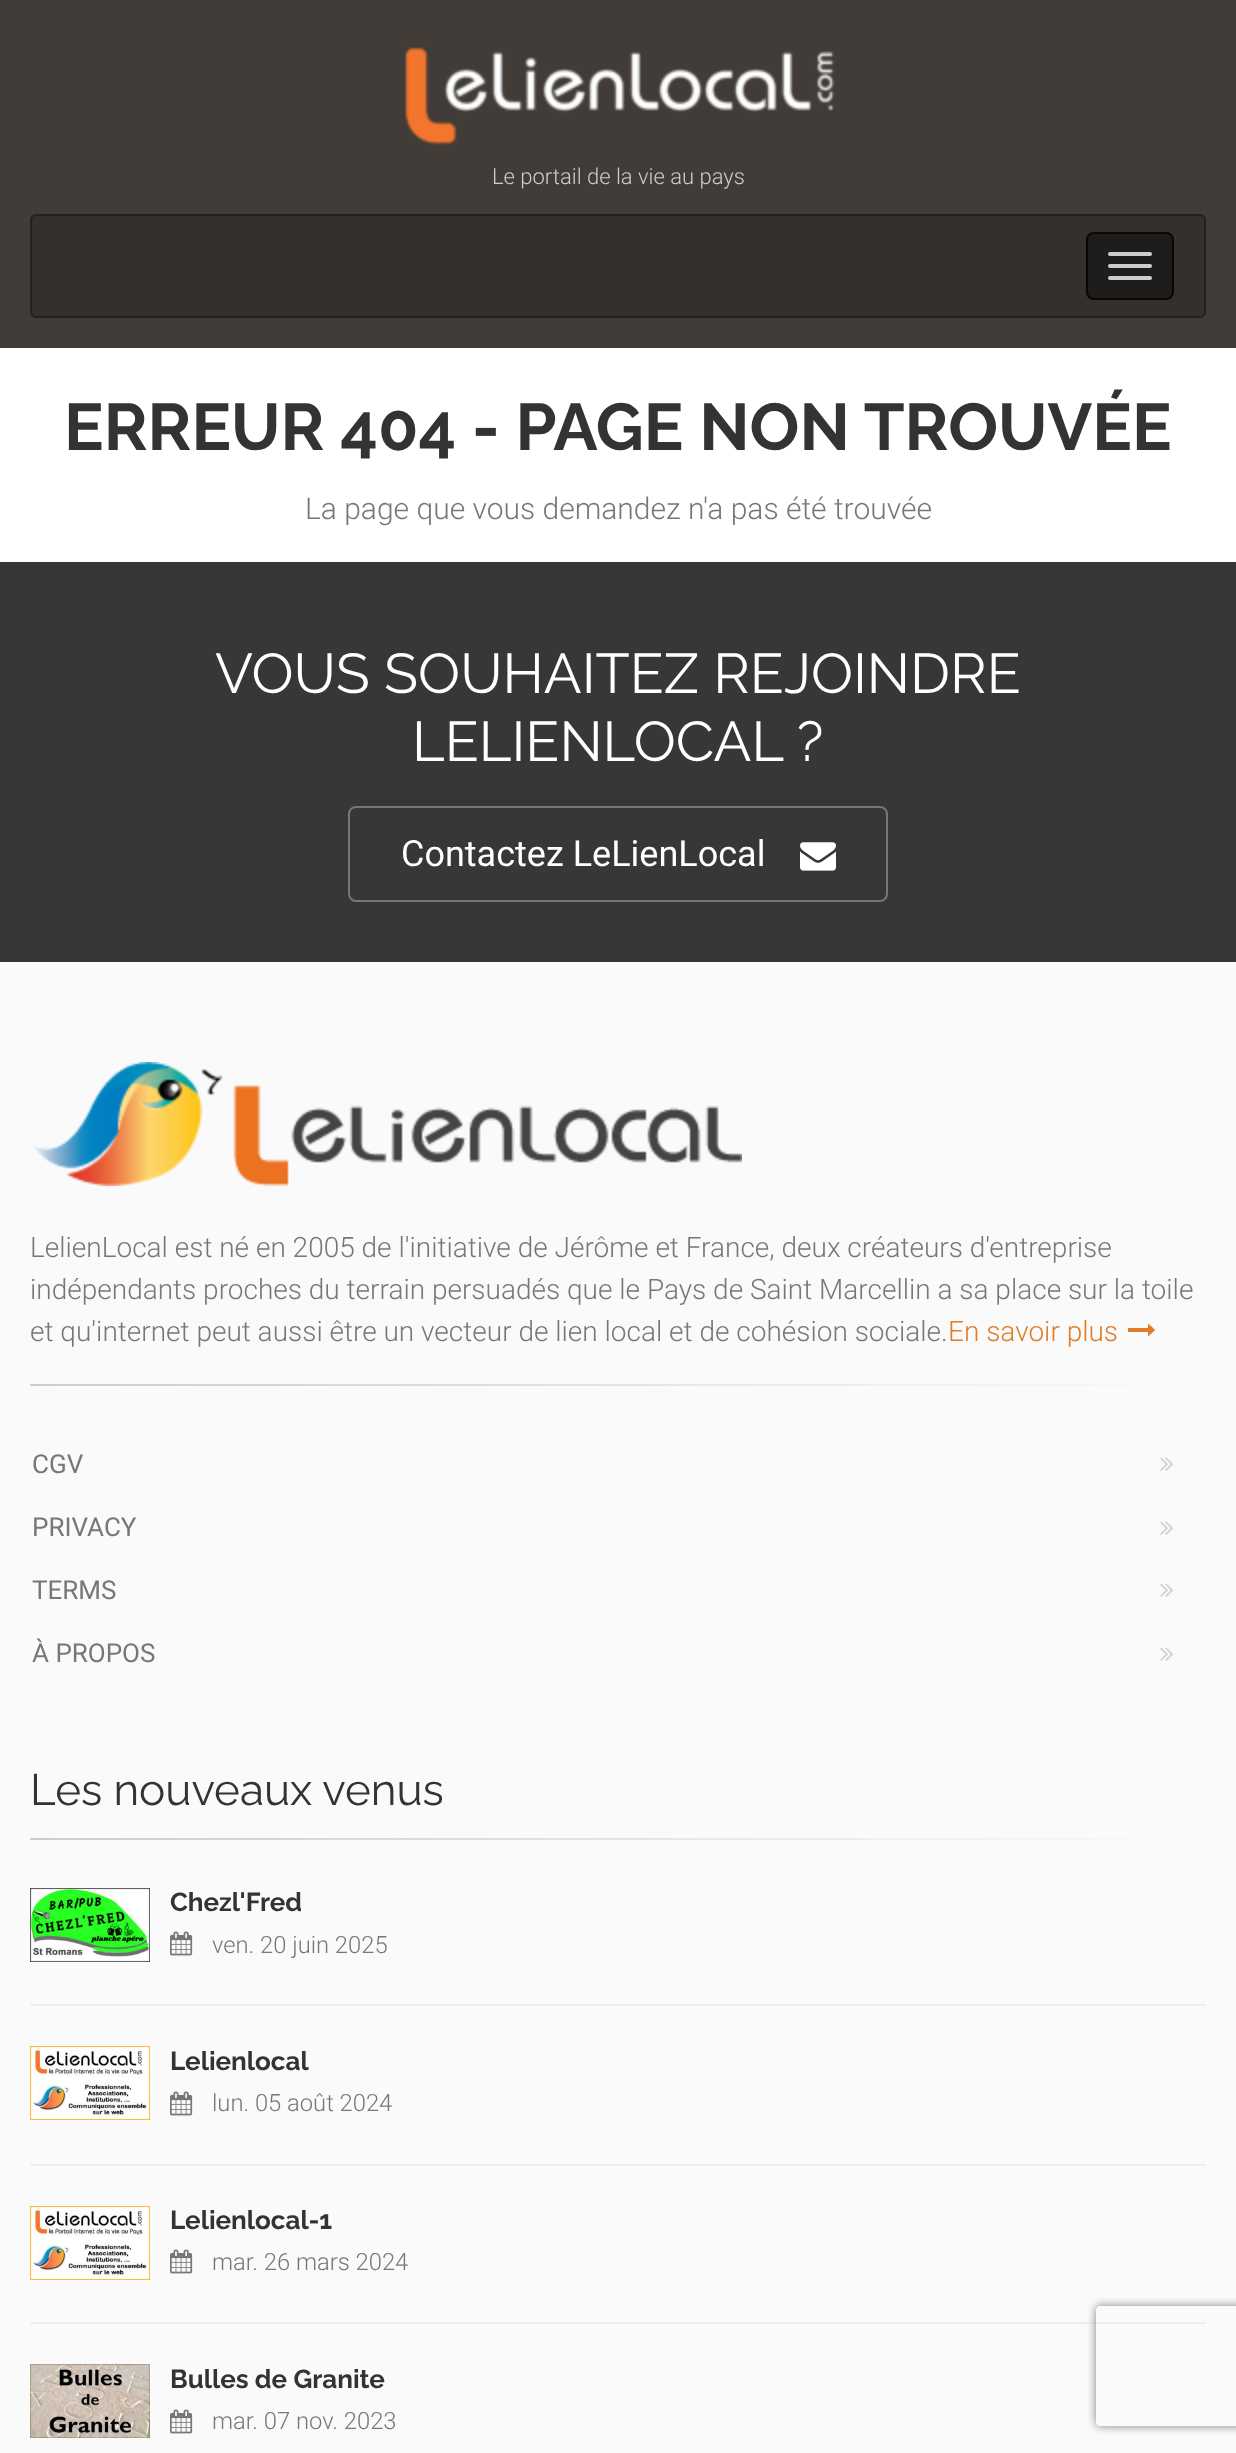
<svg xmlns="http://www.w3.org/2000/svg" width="1236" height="2453">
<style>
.a{font:300 22px Roboto;fill:#cdcdcd}
.b{font:bold 66px Raleway;fill:#333}
.c{font:300 30px Roboto;fill:#777}
.d{font:56px Raleway;fill:#fff}
.e{font:36px Roboto;fill:#fff}
.f{font:300 28px Roboto;fill:#777}
.g{font:300 28px Roboto;fill:#e07e27}
.h{font:26px Roboto;fill:#777}
.i{font:44px Raleway;fill:#333}
.j{font:bold 26px Raleway;fill:#333}
.k{font:300 23.75px Roboto;fill:#777}
</style>
<defs>
<linearGradient id="g1" gradientUnits="userSpaceOnUse" x1="30" y1="1385" x2="1206" y2="1385"><stop offset="0" stop-color="#cdcdcd"/><stop offset="0.35" stop-color="#dcdcdc"/><stop offset="0.7" stop-color="#eee"/><stop offset="1" stop-color="#fafafa"/></linearGradient>
<linearGradient id="g2" gradientUnits="userSpaceOnUse" x1="30" y1="1839" x2="1206" y2="1839"><stop offset="0" stop-color="#cdcdcd"/><stop offset="0.35" stop-color="#dcdcdc"/><stop offset="0.7" stop-color="#eee"/><stop offset="1" stop-color="#fafafa"/></linearGradient>
<clipPath id="clip1"><path d="M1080 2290h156v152h-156zm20 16h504c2 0 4 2 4 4v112c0 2-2 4-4 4h-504c-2 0-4-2-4-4v-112c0-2 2-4 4-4z" clip-rule="evenodd"/></clipPath>
</defs>
<rect width="100%" height="100%" fill="#fff"/>
<path fill="#413c38" d="M0 0h1236v348H0z"/>
<image href="1.png" x="404" y="47" width="431" height="98"/>
<rect fill="#34302d" x="30" y="214" width="1176" height="104" rx="6"/>
<rect fill="none" stroke="#0000004d" stroke-width="2" x="31" y="215" width="1174" height="102" rx="5"/>
<rect fill="#1f1d1b" x="1086" y="232" width="88" height="68" rx="8"/>
<rect fill="none" stroke="#000000b3" stroke-width="2" x="1087" y="233" width="86" height="66" rx="7"/>
<rect fill="#ccc" x="1108" y="252" width="44" height="4" rx="2"/>
<rect fill="#ccc" x="1108" y="264" width="44" height="4" rx="2"/>
<rect fill="#ccc" x="1108" y="276" width="44" height="4" rx="2"/>
<path fill="#373737" d="M0 562h1236v400H0z"/>
<rect fill="none" stroke="#777" stroke-width="2" x="349" y="807" width="538" height="94" rx="7"/>
<image href="2.png" x="800" y="842" width="36" height="29"/>
<path fill="#fafafa" d="M0 962h1236v1491H0z"/>
<image href="3.png" x="33" y="1062" width="709" height="124"/>
<image href="4.png" x="1128" y="1324" width="27" height="12"/>
<path fill="url(#g1)" d="M30 1384h1103v2H30z"/>
<image href="5.png" x="1160" y="1457" width="13" height="14"/>
<image href="5.png" x="1160" y="1521" width="13" height="14"/>
<image href="5.png" x="1160" y="1583" width="13" height="14"/>
<image href="5.png" x="1160" y="1647" width="13" height="14"/>
<path fill="url(#g2)" d="M30 1838h1103v2H30z"/>
<image href="6.png" x="30" y="1888" width="120" height="74"/>
<image href="7.png" x="170" y="1931" width="23" height="25"/>
<path fill="#eee" d="M30 2004h1176v2H30z"/>
<image href="8.png" x="30" y="2046" width="120" height="74"/>
<image href="7.png" x="170" y="2091" width="23" height="25"/>
<path fill="#eee" d="M30 2164h1176v2H30z"/>
<image href="9.png" x="30" y="2206" width="120" height="74"/>
<image href="7.png" x="170" y="2249" width="23" height="25"/>
<path fill="#eee" d="M30 2322h1176v2H30z"/>
<image href="10.png" x="30" y="2364" width="120" height="74"/>
<image href="7.png" x="170" y="2409" width="23" height="25"/>
<g clip-path="url(#clip1)">
<rect fill="#808080" filter="blur(5px)" x="1096" y="2306" width="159" height="120" rx="4"/>
</g>
<text class="a" x="492" y="184">Le portail de la vie au pays</text>
<text class="b" x="64" y="450">ERREUR 404 - PAGE NON TROUVÉE</text>
<text class="c" x="305" y="519">La page que vous demandez n'a pas été trouvée</text>
<text class="d" x="215" y="693">VOUS SOUHAITEZ REJOINDRE</text>
<text class="d" x="412" y="761">LELIENLOCAL ?</text>
<text class="e" x="401" y="866">Contactez LeLienLocal</text>
<text class="f" x="30" y="1257">LelienLocal est né en 2005 de l'initiative de Jérôme et France, deux créateurs d'entreprise</text>
<text class="f" x="30" y="1299">indépendants proches du terrain persuadés que le Pays de Saint Marcellin a sa place sur la toile</text>
<text class="f" x="30" y="1341">et qu'internet peut aussi être un vecteur de lien local et de cohésion sociale.</text>
<text class="g" x="948" y="1341">En savoir plus</text>
<text class="h" x="32" y="1473">CGV</text>
<text class="h" x="32" y="1536">PRIVACY</text>
<text class="h" x="32" y="1599">TERMS</text>
<text class="h" x="32" y="1662">À PROPOS</text>
<text class="i" x="30" y="1805">Les nouveaux venus</text>
<text class="j" x="170" y="1911">Chezl'Fred</text>
<text class="k" x="212" y="1953">ven. 20 juin 2025</text>
<text class="j" x="170" y="2070">Lelienlocal</text>
<text class="k" x="212" y="2111">lun. 05 août 2024</text>
<text class="j" x="170" y="2229">Lelienlocal-1</text>
<text class="k" x="212" y="2270">mar. 26 mars 2024</text>
<text class="j" x="170" y="2388">Bulles de Granite</text>
<text class="k" x="212" y="2429">mar. 07 nov. 2023</text>
</svg>
